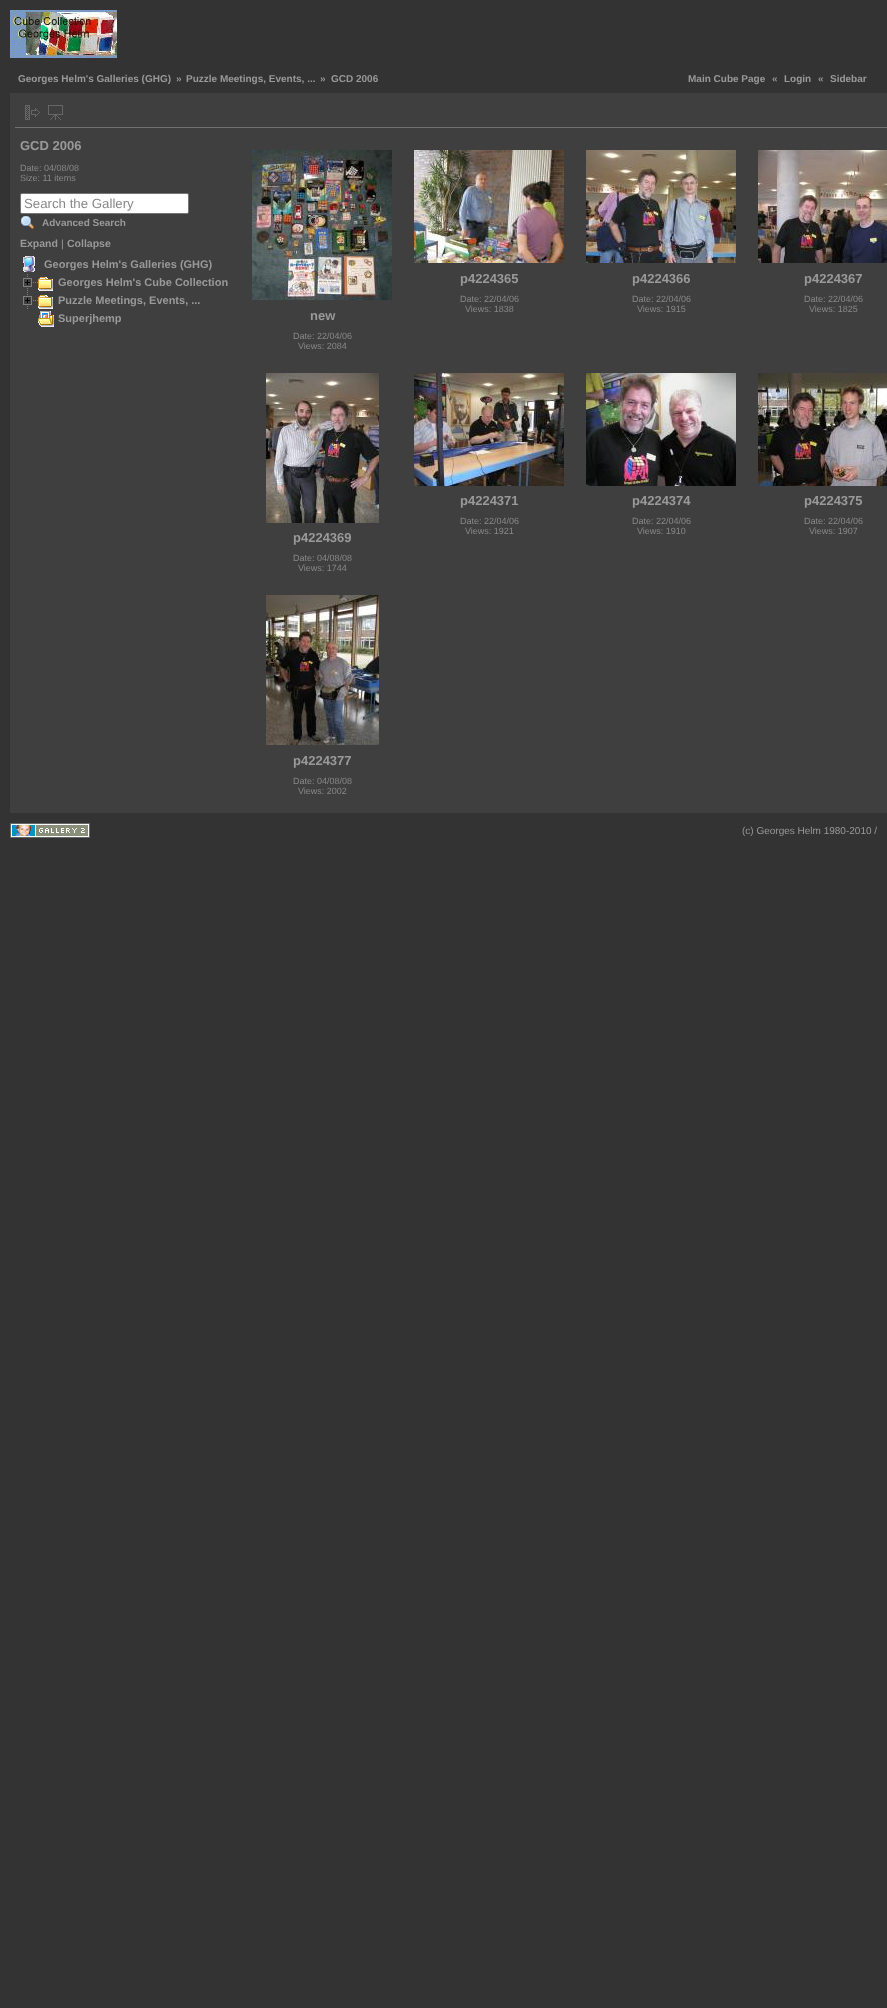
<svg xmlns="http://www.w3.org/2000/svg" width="887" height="2008">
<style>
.a{font:bold 10px Liberation Sans;fill:#999}
.b{font:bold 13px Liberation Sans;fill:#999}
.c{font:9px Liberation Sans;fill:#888}
.d{font:13.25px Liberation Sans;fill:#888}
.e{font:bold 10.5px Liberation Sans;fill:#999}
.f{font:10.5px Liberation Sans;fill:#999}
.g{font:bold 11px Liberation Sans;fill:#999}
.h{font:10px Liberation Sans;fill:#999}
</style>
<rect width="100%" height="100%" fill="#333"/>
<image href="1.png" x="10" y="10" width="107" height="48"/>
<path fill="#3f3f3f" d="M10 93h877v720H10z"/>
<path fill="#6f6f6f" d="M15 127h872v1H15z"/>
<image href="2.png" x="25" y="105" width="15" height="15"/>
<image href="3.png" x="48" y="105" width="15" height="15"/>
<rect fill="#fff" stroke="#767676" x="20.5" y="193.5" width="168" height="20" rx="1.5"/>
<image href="4.png" x="21" y="216" width="13" height="14"/>
<image href="5.png" x="23" y="256" width="12" height="16"/>
<image href="6.png" x="23" y="274" width="15" height="17"/>
<image href="7.png" x="38" y="277" width="15" height="14"/>
<image href="6.png" x="23" y="292" width="15" height="17"/>
<image href="7.png" x="38" y="295" width="15" height="14"/>
<image href="8.png" x="38" y="311" width="16" height="16"/>
<image href="9.png" x="414" y="150" width="150" height="113"/>
<image href="10.png" x="586" y="150" width="150" height="113"/>
<image href="11.png" x="758" y="150" width="129" height="113"/>
<image href="12.png" x="252" y="150" width="140" height="150"/>
<image href="13.png" x="414" y="373" width="150" height="113"/>
<image href="14.png" x="586" y="373" width="150" height="113"/>
<image href="15.png" x="758" y="373" width="129" height="113"/>
<image href="16.png" x="266" y="373" width="113" height="150"/>
<image href="17.png" x="266" y="595" width="113" height="150"/>
<image href="18.png" x="10" y="823" width="80" height="15"/>
<text class="a" x="18" y="82">Georges Helm's Galleries (GHG)</text>
<text class="a" x="176" y="82">»</text>
<text class="a" x="186" y="82">Puzzle Meetings, Events, ...</text>
<text class="a" x="320" y="82">»</text>
<text class="a" x="331" y="82">GCD 2006</text>
<text class="a" x="688" y="82">Main Cube Page</text>
<text class="a" x="772" y="82">«</text>
<text class="a" x="784" y="82">Login</text>
<text class="a" x="818" y="82">«</text>
<text class="a" x="830" y="82">Sidebar</text>
<text class="b" x="20" y="150">GCD 2006</text>
<text class="c" x="20" y="171">Date: 04/08/08</text>
<text class="c" x="20" y="181">Size: 11 items</text>
<text class="d" x="24" y="208">Search the Gallery</text>
<text class="a" x="42" y="226">Advanced Search</text>
<text class="e" x="20" y="247">Expand</text>
<text class="f" x="61" y="247">|</text>
<text class="e" x="67" y="247">Collapse</text>
<text class="g" x="44" y="268">Georges Helm's Galleries (GHG)</text>
<text class="g" x="58" y="286">Georges Helm's Cube Collection</text>
<text class="g" x="58" y="304">Puzzle Meetings, Events, ...</text>
<text class="g" x="58" y="322">Superjhemp</text>
<text class="b" x="460" y="283">p4224365</text>
<text class="c" x="460" y="302">Date: 22/04/06</text>
<text class="c" x="465" y="312">Views: 1838</text>
<text class="b" x="632" y="283">p4224366</text>
<text class="c" x="632" y="302">Date: 22/04/06</text>
<text class="c" x="637" y="312">Views: 1915</text>
<text class="b" x="804" y="283">p4224367</text>
<text class="c" x="804" y="302">Date: 22/04/06</text>
<text class="c" x="809" y="312">Views: 1825</text>
<text class="b" x="310" y="320">new</text>
<text class="c" x="293" y="339">Date: 22/04/06</text>
<text class="c" x="298" y="349">Views: 2084</text>
<text class="b" x="460" y="505">p4224371</text>
<text class="c" x="460" y="524">Date: 22/04/06</text>
<text class="c" x="465" y="534">Views: 1921</text>
<text class="b" x="632" y="505">p4224374</text>
<text class="c" x="632" y="524">Date: 22/04/06</text>
<text class="c" x="637" y="534">Views: 1910</text>
<text class="b" x="804" y="505">p4224375</text>
<text class="c" x="804" y="524">Date: 22/04/06</text>
<text class="c" x="809" y="534">Views: 1907</text>
<text class="b" x="293" y="542">p4224369</text>
<text class="c" x="293" y="561">Date: 04/08/08</text>
<text class="c" x="298" y="571">Views: 1744</text>
<text class="b" x="293" y="765">p4224377</text>
<text class="c" x="293" y="784">Date: 04/08/08</text>
<text class="c" x="298" y="794">Views: 2002</text>
<text class="h" x="742" y="834">(c) Georges Helm 1980-2010 /</text>
</svg>
